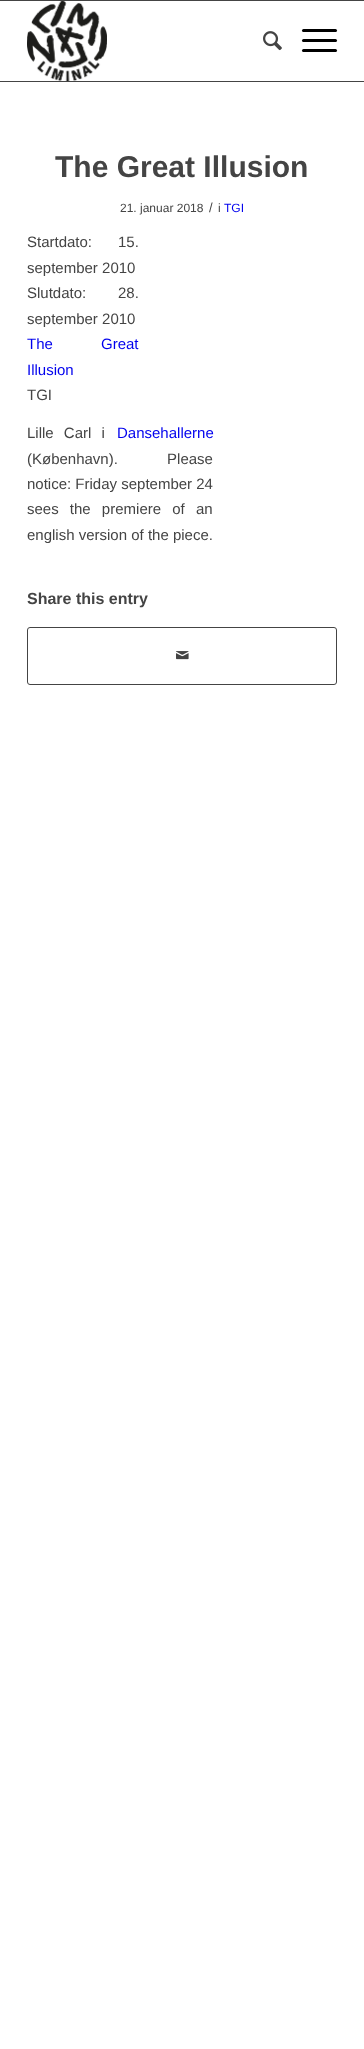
<svg xmlns="http://www.w3.org/2000/svg" width="364" height="2049">
<style>
.a{font:bold 30px Liberation Sans;fill:#444}
.b{font:12px Liberation Sans;fill:#444}
.c{font:13px Liberation Sans;fill:#444}
.d{font:12px Liberation Sans;fill:#00e}
.e{font:15px Liberation Sans;fill:#444}
.f{font:15px Liberation Sans;fill:#00e}
.g{font:bold 16px Liberation Sans;fill:#444}
</style>
<rect width="100%" height="100%" fill="#fff"/>
<path fill="#444" d="M0 0h364v1H0z"/>
<path fill="#444" d="M0 81h364v1H0z"/>
<image href="1.png" x="27" y="1" width="80" height="80"/>
<image href="2.png" x="263" y="31" width="19" height="20"/>
<rect fill="#000" x="302" y="39" width="35" height="3" rx="1.5"/>
<rect fill="#000" x="302" y="29" width="35" height="3" rx="1.5"/>
<rect fill="#000" x="302" y="49" width="35" height="3" rx="1.5"/>
<rect fill="none" stroke="#444" x="27.5" y="627.5" width="309" height="57" rx="2.5"/>
<image href="3.png" x="176" y="651" width="13" height="9"/>
<text class="a" x="55" y="177">The Great Illusion</text>
<text class="b" x="120" y="212">21. januar 2018</text>
<text class="c" x="209" y="212">/</text>
<text class="b" x="218" y="212">i</text>
<text class="d" x="224" y="212">TGI</text>
<text class="e" x="27" y="247">Startdato:</text>
<text class="e" x="118" y="247">15.</text>
<text class="e" x="27" y="273">september 2010</text>
<text class="e" x="27" y="298">Slutdato:</text>
<text class="e" x="118" y="298">28.</text>
<text class="e" x="27" y="324">september 2010</text>
<text class="f" x="27" y="349" word-spacing="44">The Great</text>
<text class="f" x="27" y="375">Illusion</text>
<text class="e" x="27" y="400">TGI</text>
<text class="e" x="27" y="438" word-spacing="6">Lille Carl i</text>
<text class="f" x="117" y="438">Dansehallerne</text>
<text class="e" x="27" y="464" word-spacing="45">(København). Please</text>
<text class="e" x="27" y="489">notice: Friday september 24</text>
<text class="e" x="27" y="514" word-spacing="7">sees the premiere of an</text>
<text class="e" x="27" y="540">english version of the piece.</text>
<text class="g" x="27" y="604">Share this entry</text>
</svg>
